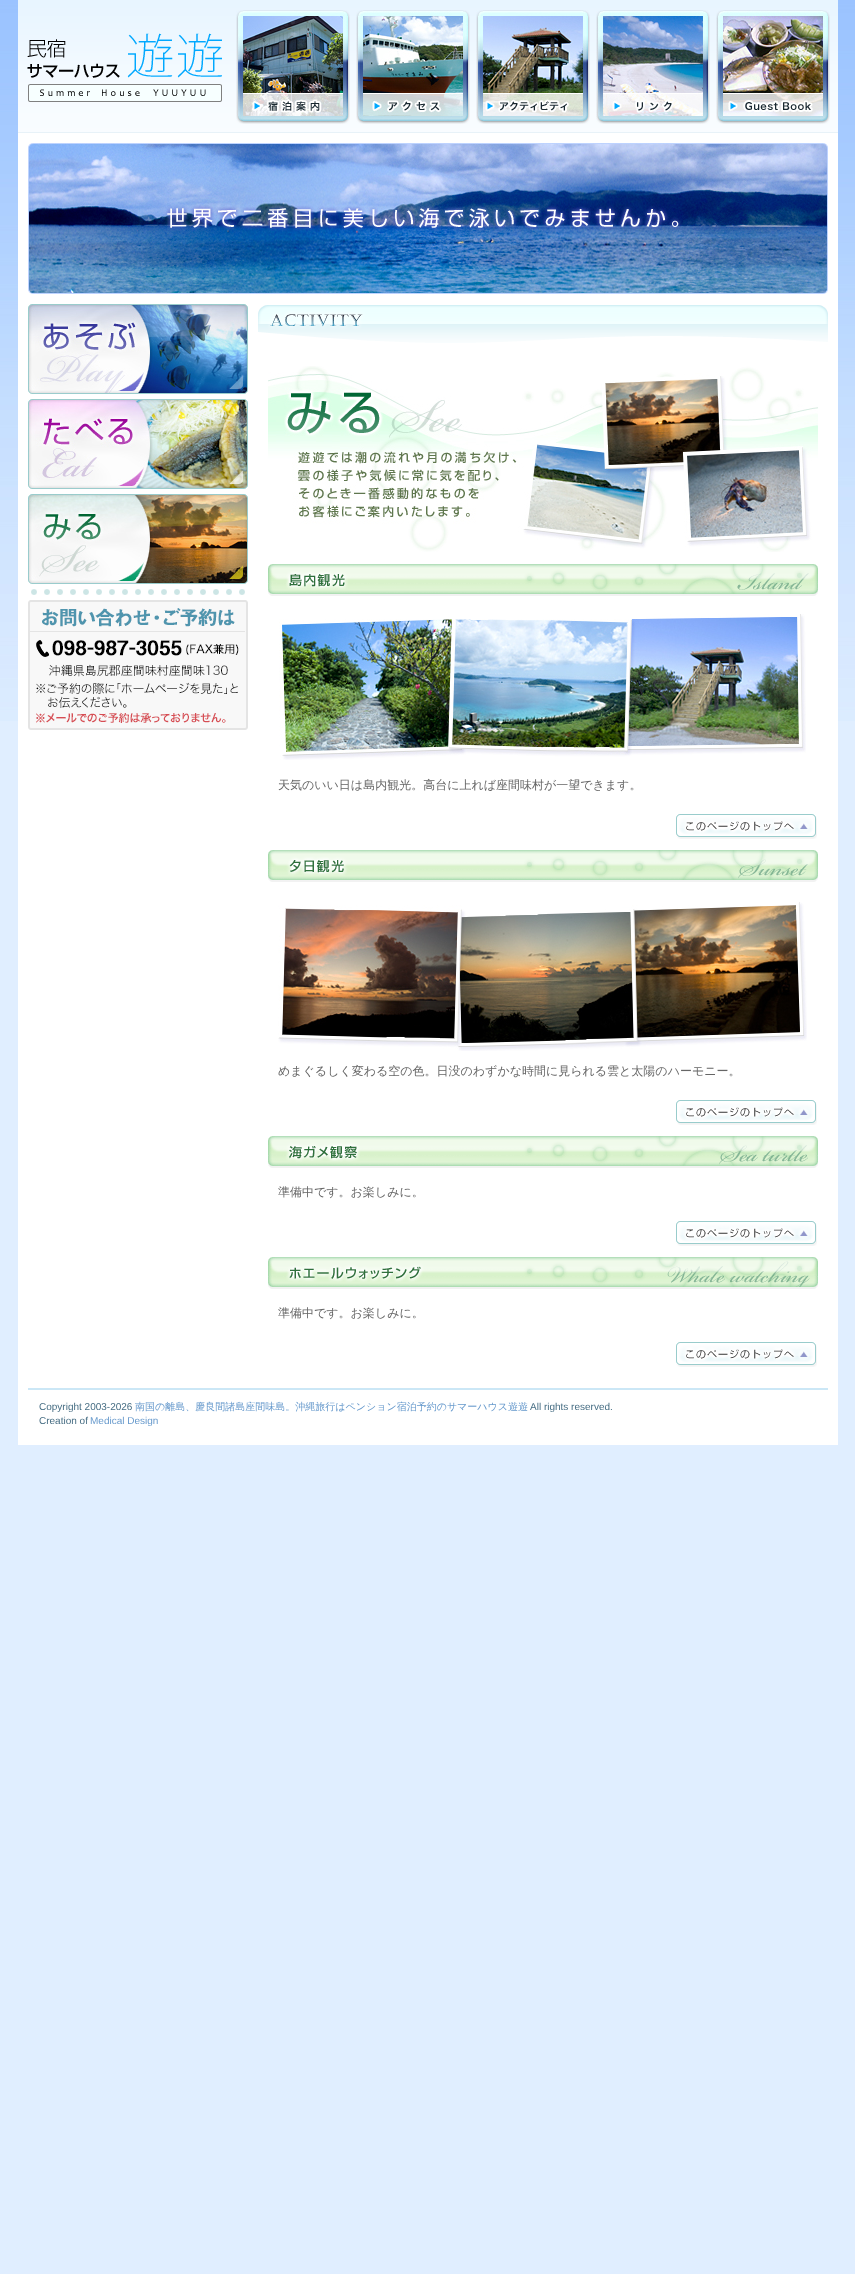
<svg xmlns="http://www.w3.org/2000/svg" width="855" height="2274">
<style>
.a{font:500 12px WenQuanYi Zen Hei;fill:#666}
.b{font:10px Liberation Sans;fill:#466d83}
.c{font:500 10px WenQuanYi Zen Hei;fill:#69c}
.d{font:10px Liberation Sans;fill:#69c}
</style>
<rect width="100%" height="100%" fill="#e0eeff"/>
<image href="1.png" x="0" y="0" width="855" height="721"/>
<path fill="#fff" d="M18 133h820v1312H18z"/>
<image href="2.png" x="18" y="0" width="820" height="132"/>
<path fill="#e8f2f8" d="M18 132h820v1H18z"/>
<image href="3.png" x="27" y="33" width="195" height="69"/>
<image href="4.png" x="236" y="10" width="114" height="114"/>
<image href="5.png" x="356" y="10" width="114" height="114"/>
<image href="6.png" x="476" y="10" width="114" height="114"/>
<image href="7.png" x="596" y="10" width="114" height="114"/>
<image href="8.png" x="716" y="10" width="114" height="114"/>
<image href="9.png" x="28" y="143" width="800" height="151"/>
<image href="10.png" x="28" y="304" width="220" height="90"/>
<image href="11.png" x="28" y="399" width="220" height="90"/>
<image href="12.png" x="28" y="494" width="220" height="90"/>
<image href="13.png" x="31" y="589" width="214" height="6"/>
<image href="14.png" x="28" y="600" width="220" height="130"/>
<image href="15.png" x="258" y="305" width="570" height="38"/>
<image href="16.png" x="268" y="366" width="550" height="186"/>
<image href="17.png" x="268" y="564" width="550" height="32"/>
<image href="18.png" x="279" y="614" width="527" height="146"/>
<image href="19.png" x="676" y="814" width="141" height="25"/>
<image href="20.png" x="268" y="850" width="550" height="32"/>
<image href="21.png" x="278" y="902" width="529" height="149"/>
<image href="19.png" x="676" y="1100" width="141" height="25"/>
<image href="22.png" x="268" y="1136" width="550" height="32"/>
<image href="19.png" x="676" y="1221" width="141" height="25"/>
<image href="23.png" x="268" y="1257" width="550" height="32"/>
<image href="19.png" x="676" y="1342" width="141" height="25"/>
<path fill="#cbe7f6" d="M28 1388h800v2H28z"/>
<text class="a" x="278" y="789">天気のいい日は島内観光。高台に上れば座間味村が一望できます。</text>
<text class="a" x="278" y="1075">めまぐるしく変わる空の色。日没のわずかな時間に見られる雲と太陽のハーモニー。</text>
<text class="a" x="278" y="1196">準備中です。お楽しみに。</text>
<text class="a" x="278" y="1317">準備中です。お楽しみに。</text>
<text class="b" x="39" y="1410">Copyright 2003-2026</text>
<text class="c" x="135" y="1410">南国の離島、慶良間諸島座間味島。沖縄旅行はペンション宿泊予約のサマーハウス遊遊</text>
<text class="b" x="530" y="1410">All rights reserved.</text>
<text class="b" x="39" y="1424">Creation of</text>
<text class="d" x="90" y="1424">Medical Design</text>
</svg>
